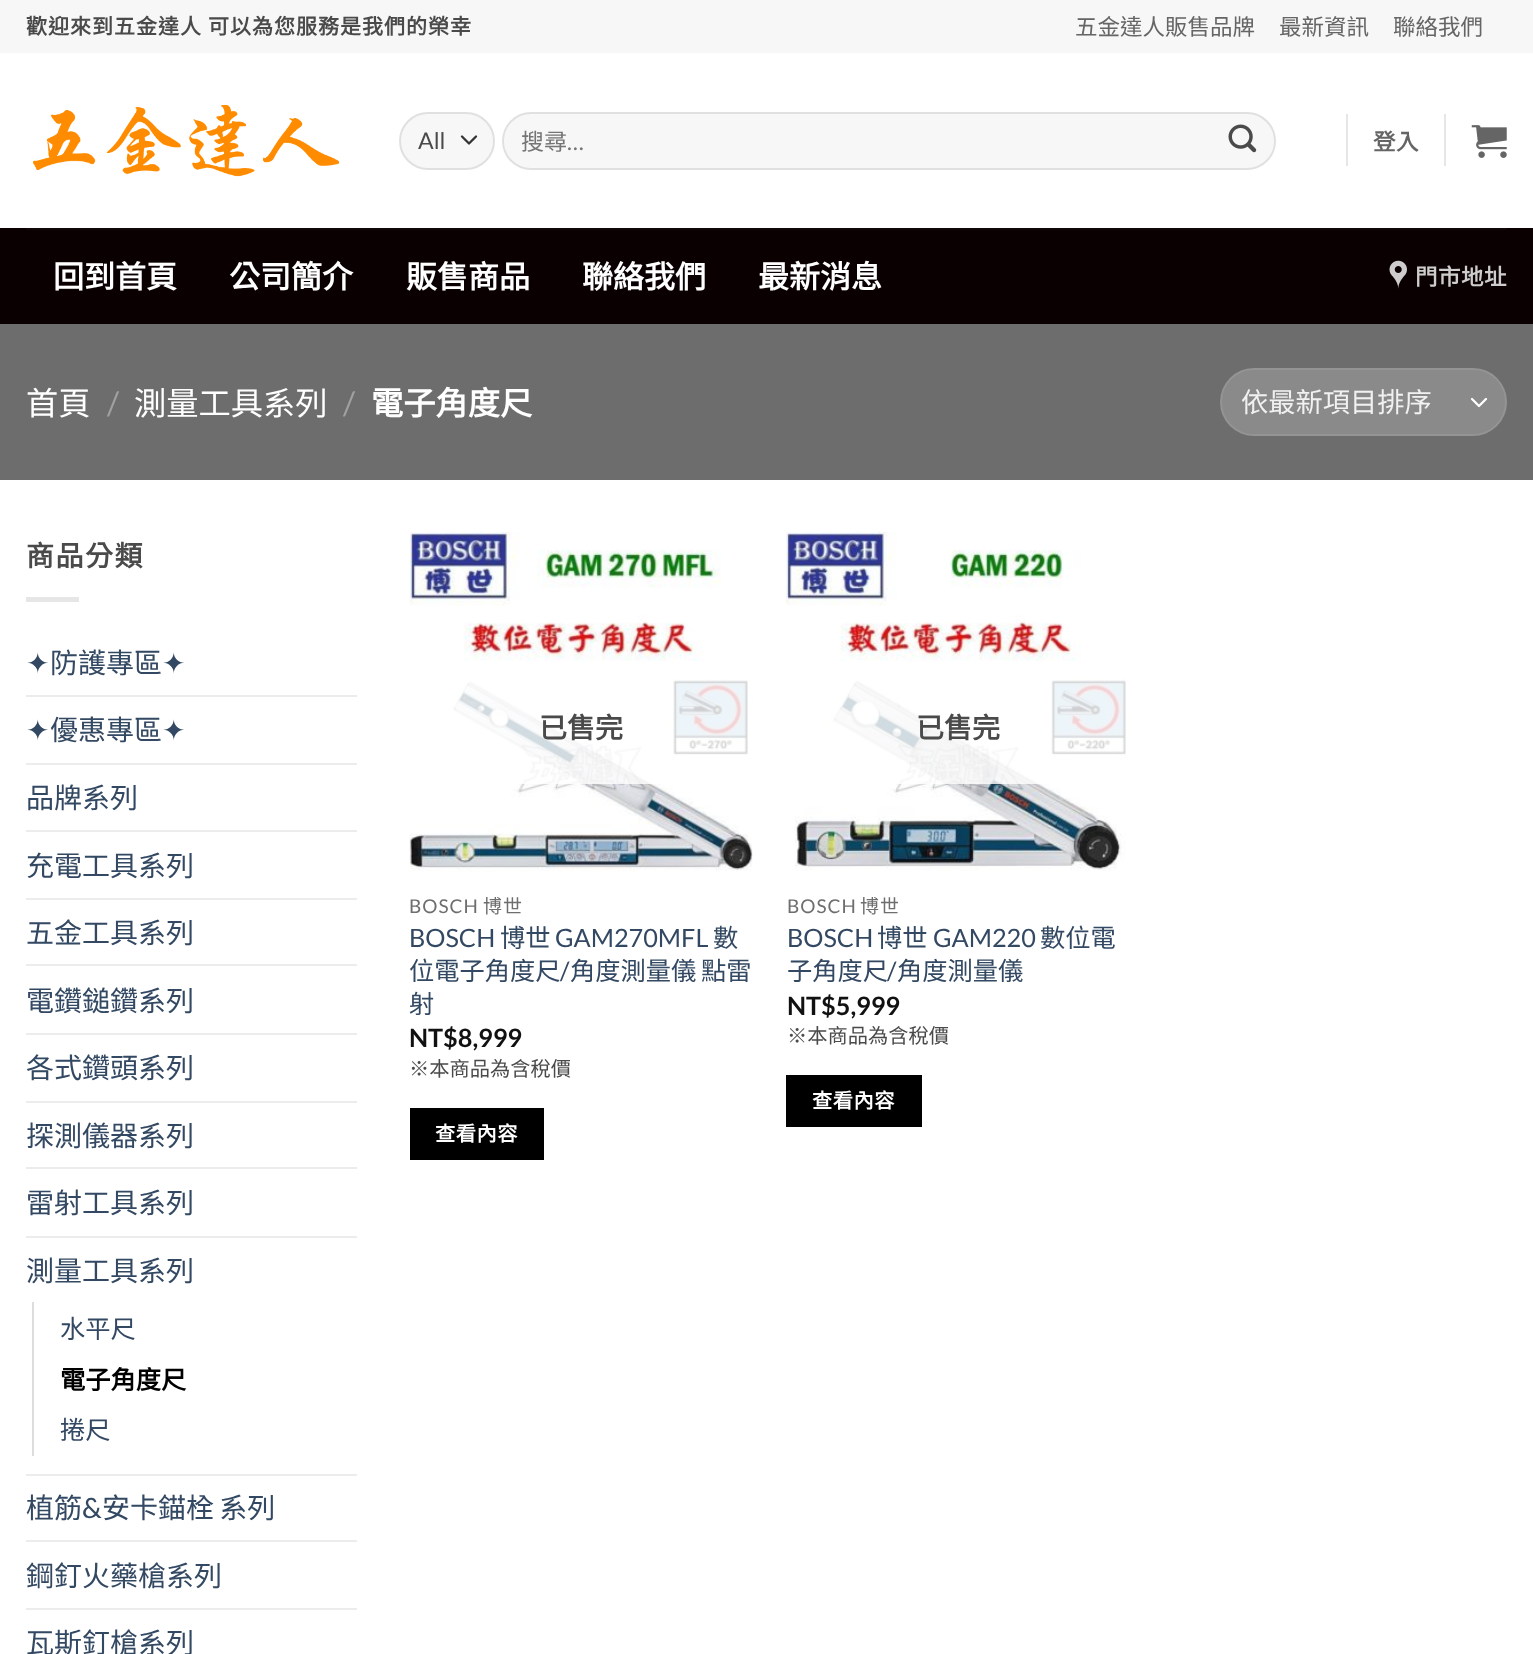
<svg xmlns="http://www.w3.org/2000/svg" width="1533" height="1654">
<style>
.a{font:bold 21px Noto Sans CJK TC;letter-spacing:1px;fill:#4a4a4a}
.b{font:22.5px Noto Sans CJK TC;fill:#656565}
.c{font:23px Lato;fill:#4a4a4a}
.d{font:23px Noto Sans CJK TC;fill:#757575}
.e{font:23px Lato;fill:#757575}
.f{font:bold 22.5px Noto Sans CJK TC;letter-spacing:0.5px;fill:#656565}
.g{font:bold 31px Noto Sans CJK TC;fill:#fff}
.h{font:bold 22.5px Noto Sans CJK TC;letter-spacing:0.5px;fill:#cecccc}
.i{font:32.25px Noto Sans CJK TC;fill:#fff}
.j{font:32.25px Lato;fill:#a0a0a0}
.k{font:bold 32.25px Noto Sans CJK TC;fill:#fff}
.l{font:27.25px Noto Sans CJK TC;fill:#f1f1f1}
.m{font:bold 28px Noto Sans CJK TC;letter-spacing:1.5px;fill:#4a4a4a}
.n{font:28px DejaVu Sans;fill:#334862}
.o{font:28px Noto Sans CJK TC;fill:#334862}
.p{font:25.25px Noto Sans CJK TC;fill:#334862}
.q{font:bold 25.25px Noto Sans CJK TC;fill:#000}
.r{font:28px Lato;fill:#334862}
.s{font:bold 28px Noto Sans CJK TC;fill:#4a4a4a}
.t{font:19px Lato;letter-spacing:1px;fill:#6e6e6e}
.u{font:19px Noto Sans CJK TC;letter-spacing:1px;fill:#6e6e6e}
.v{font:25.25px Lato;fill:#334862}
.w{font:bold 25.25px Lato;fill:#111}
.x{font:20.25px Noto Sans CJK TC;fill:#4a4a4a}
.y{font:bold 20.25px Noto Sans CJK TC;letter-spacing:0.5px;fill:#fff}
</style>
<rect width="100%" height="100%" fill="#fff"/>
<path fill="#f7f7f7" d="M0 0h1533v53H0z"/>
<image href="1.png" x="33" y="105" width="307" height="72"/>
<rect fill="#f7f7f7" x="399" y="112" width="96" height="58" rx="29"/>
<path fill="none" stroke="#333" stroke-width="2.3" stroke-linecap="round" stroke-linejoin="round" d="M462 136.5l7 7l7-7"/>
<rect fill="none" stroke="#00000017" stroke-width="2" x="400" y="113" width="94" height="56" rx="28"/>
<rect fill="#f7f7f7" x="502" y="112" width="774" height="58" rx="29"/>
<rect fill="none" stroke="#00000017" stroke-width="2" x="503" y="113" width="772" height="56" rx="28"/>
<image href="2.png" x="1228" y="124" width="29" height="29"/>
<path fill="#e6e6e6" d="M1346 114h2v52H1346z"/>
<path fill="#e6e6e6" d="M1444 114h2v52H1444z"/>
<image href="3.png" x="1471" y="125" width="36" height="33"/>
<path fill="#0a0002" d="M0 228h1533v96H0z"/>
<path fill="#100709" d="M26 228h1481v2H26z"/>
<image href="4.png" x="1389" y="260" width="18" height="29"/>
<path fill="#6d6d6d" d="M0 324h1533v156H0z"/>
<rect fill="#8a8a8a" x="1220" y="368" width="287" height="68" rx="34"/>
<path fill="none" stroke="#fff" stroke-width="2.3" stroke-linecap="round" stroke-linejoin="round" d="M1472 399l7 7l7-7"/>
<rect fill="none" stroke="#ffffff17" stroke-width="2" x="1221" y="369" width="285" height="66" rx="33"/>
<path fill="#e6e6e6" d="M26 597h53v5H26z"/>
<path fill="#ececec" d="M26 695h331v2H26z"/>
<path fill="#ececec" d="M26 763h331v2H26z"/>
<path fill="#ececec" d="M26 830h331v2H26z"/>
<path fill="#ececec" d="M26 898h331v2H26z"/>
<path fill="#ececec" d="M26 964h331v2H26z"/>
<path fill="#ececec" d="M26 1033h331v2H26z"/>
<path fill="#ececec" d="M26 1101h331v2H26z"/>
<path fill="#ececec" d="M26 1167h331v2H26z"/>
<path fill="#ececec" d="M26 1236h331v2H26z"/>
<path fill="#ddd" d="M32 1302h2v154H32z"/>
<path fill="#ececec" d="M26 1474h331v2H26z"/>
<path fill="#ececec" d="M26 1540h331v2H26z"/>
<path fill="#ececec" d="M26 1608h331v2H26z"/>
<image href="5.png" x="409" y="532" width="344" height="341"/>
<path fill="#ffffffcf" d="M446 677h306v107H446z"/>
<path fill="#000" d="M410 1108h134v52H410z"/>
<image href="6.png" x="786" y="532" width="344" height="339"/>
<path fill="#ffffffcf" d="M832 678h298v106H832z"/>
<path fill="#000" d="M786 1075h136v52H786z"/>
<text class="a" x="26" y="34">歡迎來到五金達人</text>
<text class="a" x="208" y="34">可以為您服務是我們的榮幸</text>
<text class="b" x="1075" y="35">五金達人販售品牌</text>
<text class="b" x="1279" y="35">最新資訊</text>
<text class="b" x="1393" y="35">聯絡我們</text>
<text class="c" x="418" y="149">All</text>
<text class="d" x="521" y="150">搜尋</text>
<text class="e" x="567" y="150">…</text>
<text class="f" x="1373" y="150">登入</text>
<text class="g" x="53" y="288">回到首頁</text>
<text class="g" x="229" y="288">公司簡介</text>
<text class="g" x="406" y="288">販售商品</text>
<text class="g" x="582" y="288">聯絡我們</text>
<text class="g" x="758" y="288">最新消息</text>
<text class="h" x="1415" y="285">門市地址</text>
<text class="i" x="26" y="415">首頁</text>
<text class="j" x="107" y="415">/</text>
<text class="i" x="134" y="415">測量工具系列</text>
<text class="j" x="343" y="415">/</text>
<text class="k" x="371" y="415">電子角度尺</text>
<text class="l" x="1241" y="412">依最新項目排序</text>
<text class="m" x="26" y="566">商品分類</text>
<text class="n" x="26" y="673">✦</text>
<text class="o" x="50" y="673">防護專區</text>
<text class="n" x="162" y="673">✦</text>
<text class="n" x="26" y="740">✦</text>
<text class="o" x="50" y="740">優惠專區</text>
<text class="n" x="162" y="740">✦</text>
<text class="o" x="26" y="808">品牌系列</text>
<text class="o" x="26" y="876">充電工具系列</text>
<text class="o" x="26" y="943">五金工具系列</text>
<text class="o" x="26" y="1011">電鑽鎚鑽系列</text>
<text class="o" x="26" y="1078">各式鑽頭系列</text>
<text class="o" x="26" y="1146">探測儀器系列</text>
<text class="o" x="26" y="1213">雷射工具系列</text>
<text class="o" x="26" y="1281">測量工具系列</text>
<text class="p" x="60" y="1338">水平尺</text>
<text class="q" x="60" y="1389">電子角度尺</text>
<text class="p" x="60" y="1439">捲尺</text>
<text class="o" x="26" y="1518">植筋</text>
<text class="r" x="82" y="1518">&amp;</text>
<text class="o" x="102" y="1518" word-spacing="-1">安卡錨栓 系列</text>
<text class="o" x="26" y="1586">鋼釘火藥槍系列</text>
<text class="o" x="26" y="1653">瓦斯釘槍系列</text>
<text class="s" x="539" y="738">已售完</text>
<text class="t" x="409" y="913">BOSCH</text>
<text class="u" x="483" y="913">博世</text>
<text class="v" x="409" y="947">BOSCH</text>
<text class="p" x="500" y="947">博世</text>
<text class="v" x="555" y="947">GAM270MFL</text>
<text class="p" x="713" y="947">數</text>
<text class="p" x="409" y="980">位電子角度尺</text>
<text class="v" x="560" y="980">/</text>
<text class="p" x="570" y="980" word-spacing="-1">角度測量儀 點雷</text>
<text class="p" x="409" y="1013">射</text>
<text class="w" x="409" y="1047">NT$8,999</text>
<text class="x" x="409" y="1076">※本商品為含稅價</text>
<text class="y" x="435" y="1141">查看內容</text>
<text class="s" x="916" y="738">已售完</text>
<text class="t" x="787" y="913">BOSCH</text>
<text class="u" x="860" y="913">博世</text>
<text class="v" x="787" y="947">BOSCH</text>
<text class="p" x="877" y="947">博世</text>
<text class="v" x="933" y="947">GAM220</text>
<text class="p" x="1040" y="947">數位電</text>
<text class="p" x="787" y="980">子角度尺</text>
<text class="v" x="887" y="980">/</text>
<text class="p" x="897" y="980">角度測量儀</text>
<text class="w" x="787" y="1015">NT$5,999</text>
<text class="x" x="787" y="1043">※本商品為含稅價</text>
<text class="y" x="812" y="1108">查看內容</text>
</svg>
